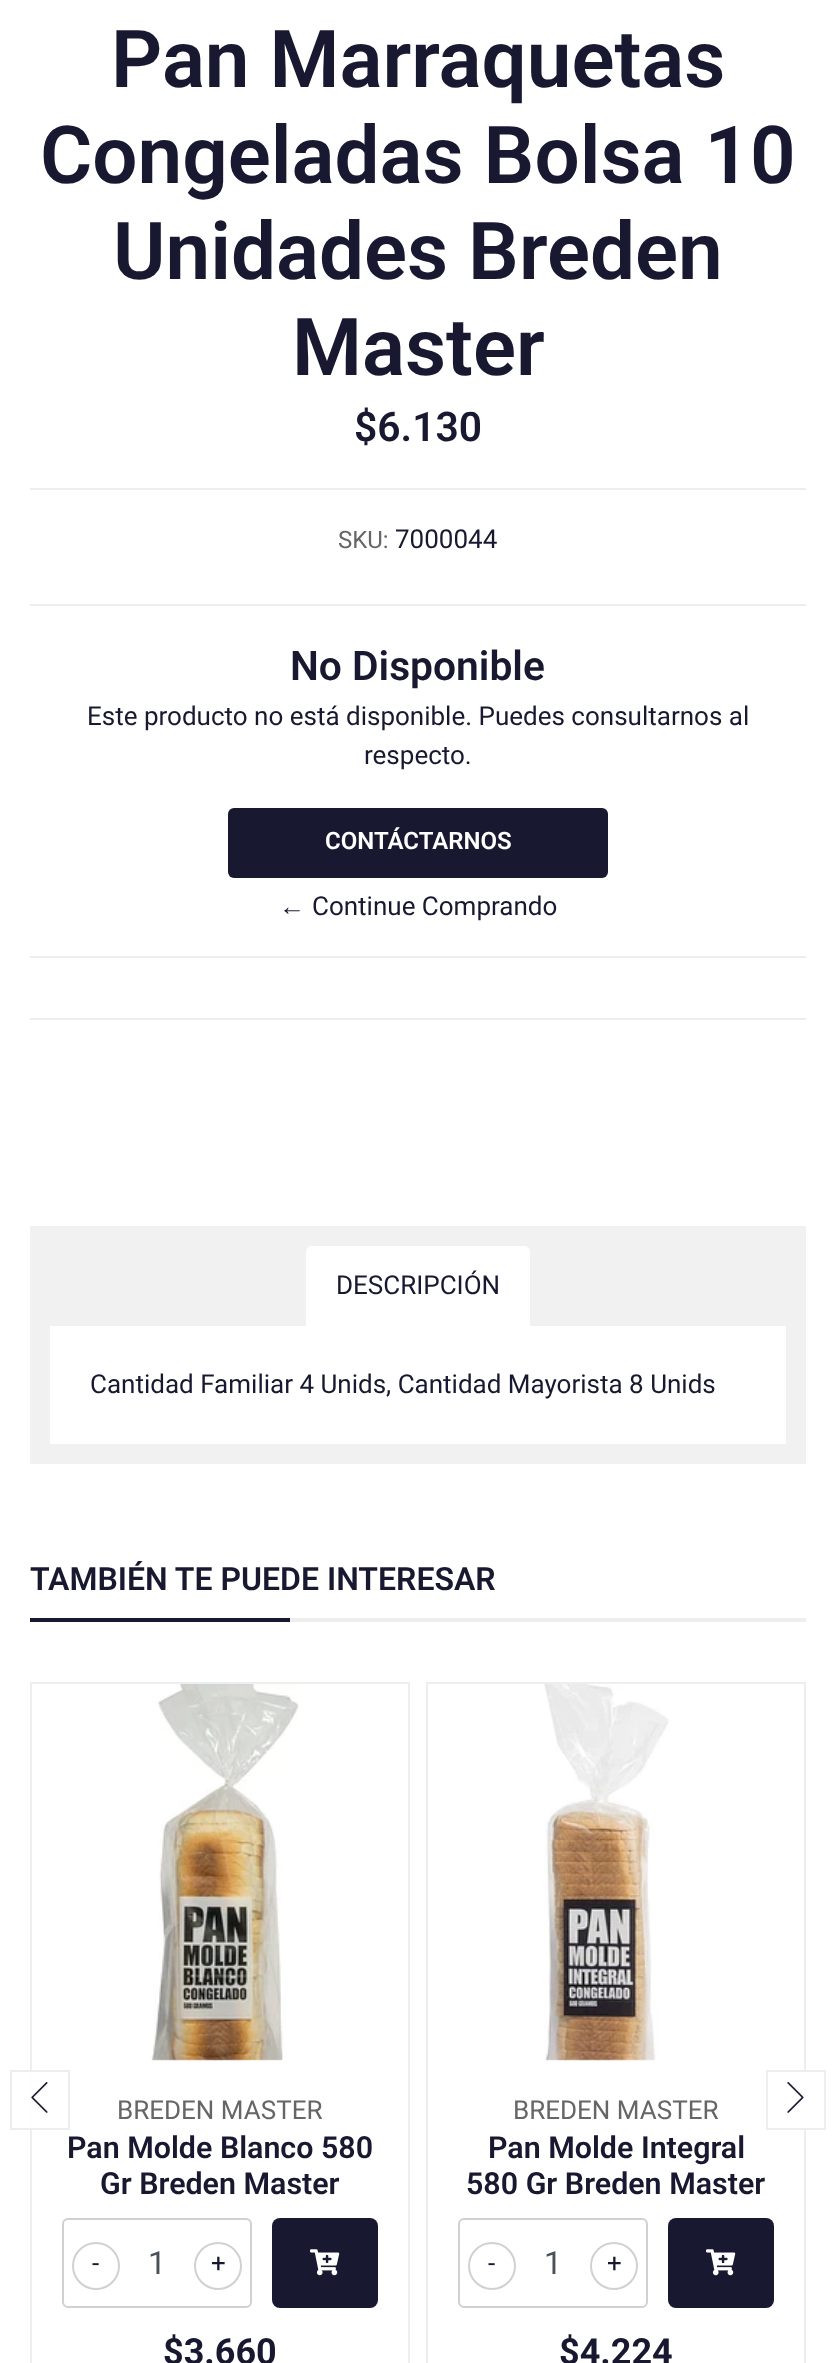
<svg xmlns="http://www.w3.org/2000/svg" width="836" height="2363">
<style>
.a{font:600 80px Roboto;fill:#181930}
.b{font:600 40.75px Roboto;fill:#181930}
.c{font:24px Roboto;fill:#666}
.d{font:26px Roboto;fill:#181930}
.e{font:600 24px Roboto;fill:#fff}
.f{font:26px Liberation Serif;fill:#181930}
.g{font:600 32px Roboto;fill:#181930}
.h{font:26px Roboto;fill:#666}
.i{font:600 30.4px Roboto;fill:#181930}
.j{font:32px Roboto;fill:#495057}
.k{font:bold 36px Roboto;fill:#181930}
</style>
<rect width="100%" height="100%" fill="#fff"/>
<path fill="#eee" d="M30 488h776v2H30z"/>
<path fill="#eee" d="M30 604h776v2H30z"/>
<path fill="#eee" d="M30 956h776v2H30z"/>
<rect fill="#181930" x="228" y="808" width="380" height="70" rx="6"/>
<path fill="#eee" d="M30 1018h776v2H30z"/>
<path fill="#f1f1f1" d="M30 1226h776v238H30z"/>
<path fill="#fff" d="M312 1246h212c3.5 0 6 2.5 6 6v74h-224v-74c0-3.5 2.5-6 6-6z"/>
<path fill="#fff" d="M50 1326h736v118H50z"/>
<path fill="#eee" d="M290 1618h516v4H290z"/>
<path fill="#181930" d="M30 1618h260v4H30z"/>
<path fill="none" stroke="#eee" stroke-width="2" d="M31 1683h378v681H31z"/>
<path fill="#ffffffe6" d="M30 2072h2v56H30z"/>
<path fill="none" stroke="#eee" stroke-width="2" d="M11 2071h58v58H11z"/>
<image href="1.png" x="31" y="2082" width="17" height="31"/>
<path fill="none" stroke="#eee" stroke-width="2" d="M427 1683h378v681H427z"/>
<path fill="#ffffffe6" d="M804 2072h2v56H804z"/>
<path fill="none" stroke="#eee" stroke-width="2" d="M767 2071h58v58H767z"/>
<image href="2.png" x="787" y="2082" width="17" height="31"/>
<image href="3.png" x="151" y="1684" width="148" height="377"/>
<rect fill="none" stroke="#d1d1d1" stroke-width="2" x="63" y="2219" width="188" height="88" rx="5"/>
<circle fill="none" stroke="#d1d1d1" stroke-width="2" cx="96" cy="2266" r="23"/>
<circle fill="none" stroke="#d1d1d1" stroke-width="2" cx="218" cy="2266" r="23"/>
<rect fill="#181930" x="272" y="2218" width="106" height="90" rx="8"/>
<image href="4.png" x="310" y="2249" width="30" height="27"/>
<image href="5.png" x="544" y="1684" width="125" height="377"/>
<rect fill="none" stroke="#d1d1d1" stroke-width="2" x="459" y="2219" width="188" height="88" rx="5"/>
<circle fill="none" stroke="#d1d1d1" stroke-width="2" cx="492" cy="2266" r="23"/>
<circle fill="none" stroke="#d1d1d1" stroke-width="2" cx="614" cy="2266" r="23"/>
<rect fill="#181930" x="668" y="2218" width="106" height="90" rx="8"/>
<image href="4.png" x="706" y="2249" width="30" height="27"/>
<text class="a" x="111" y="87">Pan Marraquetas</text>
<text class="a" x="40" y="183">Congeladas Bolsa 10</text>
<text class="a" x="113" y="279">Unidades Breden</text>
<text class="a" x="292" y="375">Master</text>
<text class="b" x="354" y="441">$6.130</text>
<text class="c" x="338" y="548">SKU:</text>
<text class="d" x="395" y="548">7000044</text>
<text class="b" x="290" y="680">No Disponible</text>
<text class="d" x="87" y="725">Este producto no está disponible. Puedes consultarnos al</text>
<text class="d" x="364" y="764">respecto.</text>
<text class="e" x="325" y="849">CONTÁCTARNOS</text>
<text class="f" x="279" y="915">←</text>
<text class="d" x="312" y="915">Continue Comprando</text>
<text class="d" x="336" y="1294">DESCRIPCIÓN</text>
<text class="d" x="90" y="1393">Cantidad Familiar 4 Unids, Cantidad Mayorista 8 Unids</text>
<text class="g" x="30" y="1590">TAMBIÉN TE PUEDE INTERESAR</text>
<text class="h" x="117" y="2119">BREDEN MASTER</text>
<text class="i" x="67" y="2158">Pan Molde Blanco 580</text>
<text class="i" x="100" y="2194">Gr Breden Master</text>
<text class="j" x="148" y="2274">1</text>
<text class="d" x="92" y="2272">-</text>
<text class="d" x="211" y="2272">+</text>
<text class="k" x="163" y="2364">$3.660</text>
<text class="h" x="513" y="2119">BREDEN MASTER</text>
<text class="i" x="488" y="2158">Pan Molde Integral</text>
<text class="i" x="466" y="2194">580 Gr Breden Master</text>
<text class="j" x="544" y="2274">1</text>
<text class="d" x="488" y="2272">-</text>
<text class="d" x="607" y="2272">+</text>
<text class="k" x="559" y="2364">$4.224</text>
</svg>
